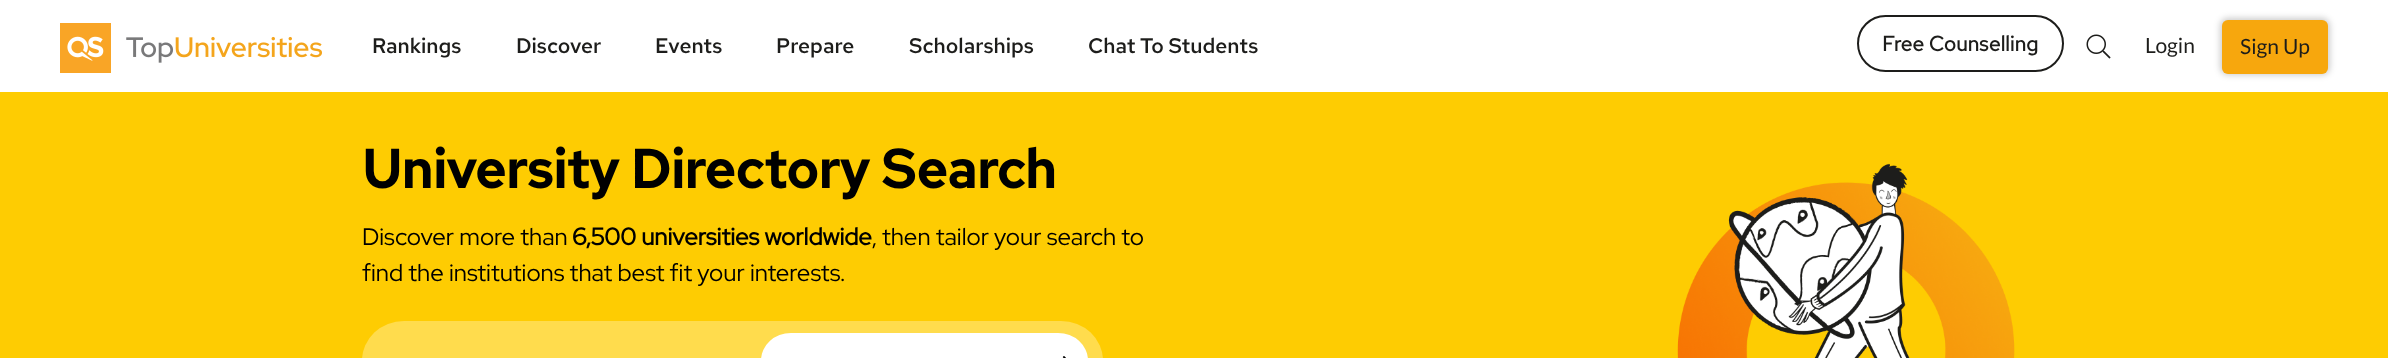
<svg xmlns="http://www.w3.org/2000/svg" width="2388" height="358">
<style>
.a{font:500 21px Red Hat Text;fill:#1d1d1b}
.b{font:bold 21px 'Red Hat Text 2';fill:#1d1d1b}
.c{font:21px Lato;fill:#1d1d1b}
.d{font:bold 54px Red Hat Text;fill:#000}
.e{font:24px Red Hat Display;fill:#000}
.f{font:bold 24px Red Hat Display;fill:#000}
</style>
<rect width="100%" height="100%" fill="#fff"/>
<image href="1.png" x="60" y="23" width="262" height="50"/>
<rect fill="none" stroke="#1d1d1b" stroke-width="2" x="1858" y="16" width="205" height="55" rx="27.5"/>
<image href="2.png" x="2086" y="34" width="25" height="25"/>
<rect fill="#00000033" filter="blur(3px)" x="2220" y="18" width="110" height="57" rx="8"/>
<rect fill="#f7a70d" x="2222" y="20" width="106" height="54" rx="6"/>
<path fill="#fecc02" d="M0 92h2388v266H0z"/>
<rect fill="#ffdc4d" x="362" y="321" width="741" height="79" rx="42"/>
<rect fill="#fff" x="761" y="333" width="327" height="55" rx="30"/>
<image href="3.png" x="1062" y="356" width="4" height="2"/>
<image href="4.png" x="1677" y="163" width="338" height="195"/>
<text class="a" x="372" y="53">Rankings</text>
<text class="a" x="516" y="53">Discover</text>
<text class="a" x="655" y="53">Events</text>
<text class="a" x="776" y="53">Prepare</text>
<text class="a" x="909" y="53">Scholarships</text>
<text class="a" x="1088" y="53">Chat To Students</text>
<text class="b" x="1882" y="51">Free Counselling</text>
<text class="c" x="2145" y="53">Login</text>
<text class="c" x="2240" y="54">Sign Up</text>
<text class="d" x="362" y="188">University Directory Search</text>
<text class="e" x="362" y="245">Discover more than</text>
<text class="f" x="572" y="245">6,500 universities worldwide</text>
<text class="e" x="872" y="245">, then tailor your search to</text>
<text class="e" x="362" y="281">find the institutions that best fit your interests.</text>
</svg>
